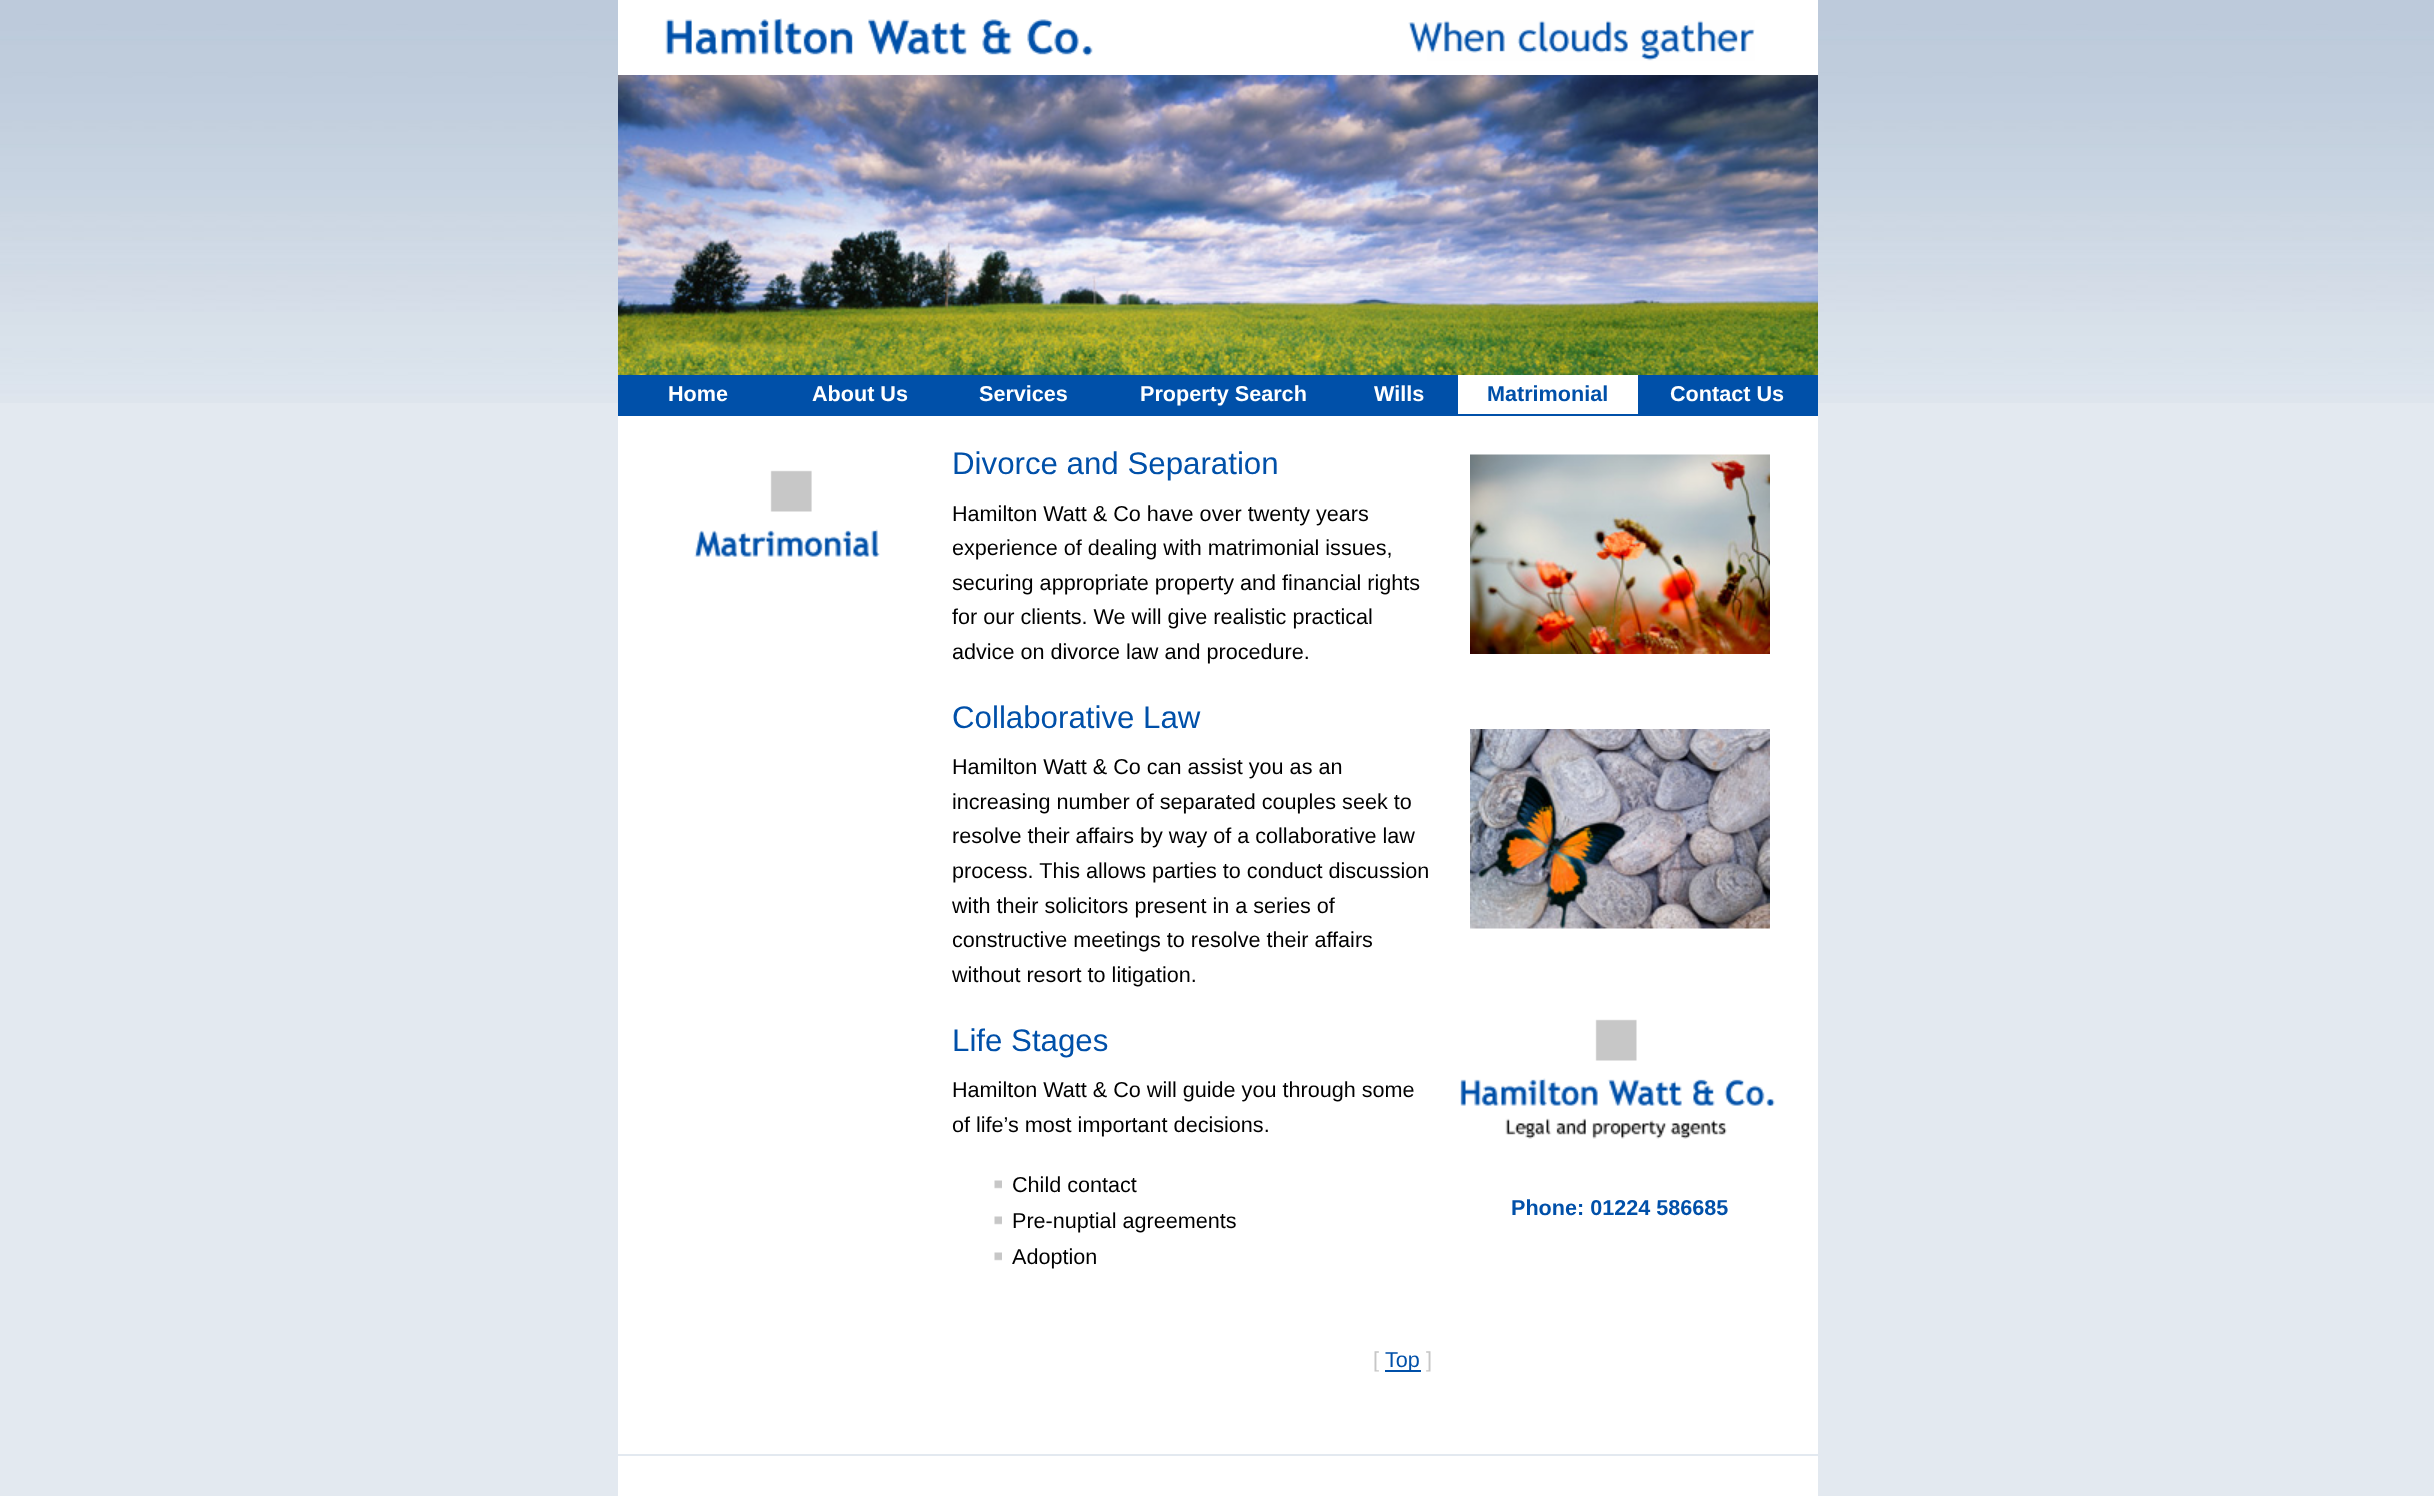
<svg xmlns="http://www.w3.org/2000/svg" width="2434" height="1496">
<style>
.a{font:bold 21.6px Liberation Sans;fill:#fff}
.b{font:bold 21.6px Liberation Sans;fill:#0050a9}
.c{font:31.25px Liberation Sans;fill:#0050a9}
.d{font:21.6px Liberation Sans;fill:#000}
.e{font:21.6px Liberation Sans;fill:#c7c7c7}
.f{font:21.6px Liberation Sans;fill:#0050a9}
</style>
<rect width="100%" height="100%" fill="#e3e9f0"/>
<image href="1.png" x="0" y="0" width="2434" height="403"/>
<path fill="#fff" d="M618 0h1200v1496H618z"/>
<image href="2.png" x="665" y="18" width="428" height="38"/>
<image href="3.png" x="1408" y="20" width="347" height="41"/>
<image href="4.png" x="618" y="75" width="1200" height="300"/>
<path fill="#0050a9" d="M618 375h1200v41H618z"/>
<path fill="#fff" d="M1458 375h180v39H1458z"/>
<image href="5.png" x="694" y="470" width="186" height="87"/>
<image href="6.png" x="994" y="1180" width="8" height="9"/>
<image href="6.png" x="994" y="1216" width="8" height="9"/>
<image href="6.png" x="994" y="1252" width="8" height="9"/>
<path fill="#0050a9" d="M1385 1370h36v2H1385z"/>
<image href="7.png" x="1470" y="454" width="300" height="200"/>
<image href="8.png" x="1470" y="729" width="300" height="200"/>
<image href="9.png" x="1460" y="1019" width="315" height="120"/>
<path fill="#e3e9f0" d="M618 1454h1200v2H618z"/>
<text class="a" x="668" y="401">Home</text>
<text class="a" x="812" y="401">About Us</text>
<text class="a" x="979" y="401">Services</text>
<text class="a" x="1140" y="401">Property Search</text>
<text class="a" x="1374" y="401">Wills</text>
<text class="b" x="1487" y="401">Matrimonial</text>
<text class="a" x="1670" y="401">Contact Us</text>
<text class="c" x="952" y="474">Divorce and Separation</text>
<text class="d" x="952" y="521">Hamilton Watt &amp; Co have over twenty years</text>
<text class="d" x="952" y="555">experience of dealing with matrimonial issues,</text>
<text class="d" x="952" y="590">securing appropriate property and financial rights</text>
<text class="d" x="952" y="624">for our clients. We will give realistic practical</text>
<text class="d" x="952" y="659">advice on divorce law and procedure.</text>
<text class="c" x="952" y="728">Collaborative Law</text>
<text class="d" x="952" y="774">Hamilton Watt &amp; Co can assist you as an</text>
<text class="d" x="952" y="809">increasing number of separated couples seek to</text>
<text class="d" x="952" y="843">resolve their affairs by way of a collaborative law</text>
<text class="d" x="952" y="878">process. This allows parties to conduct discussion</text>
<text class="d" x="952" y="913">with their solicitors present in a series of</text>
<text class="d" x="952" y="947">constructive meetings to resolve their affairs</text>
<text class="d" x="952" y="982">without resort to litigation.</text>
<text class="c" x="952" y="1051">Life Stages</text>
<text class="d" x="952" y="1097">Hamilton Watt &amp; Co will guide you through some</text>
<text class="d" x="952" y="1132">of life’s most important decisions.</text>
<text class="d" x="1012" y="1192">Child contact</text>
<text class="d" x="1012" y="1228">Pre-nuptial agreements</text>
<text class="d" x="1012" y="1264">Adoption</text>
<text class="e" x="1373" y="1367">[</text>
<text class="f" x="1385" y="1367">Top</text>
<text class="e" x="1426" y="1367">]</text>
<text class="b" x="1511" y="1215">Phone: 01224 586685</text>
</svg>
